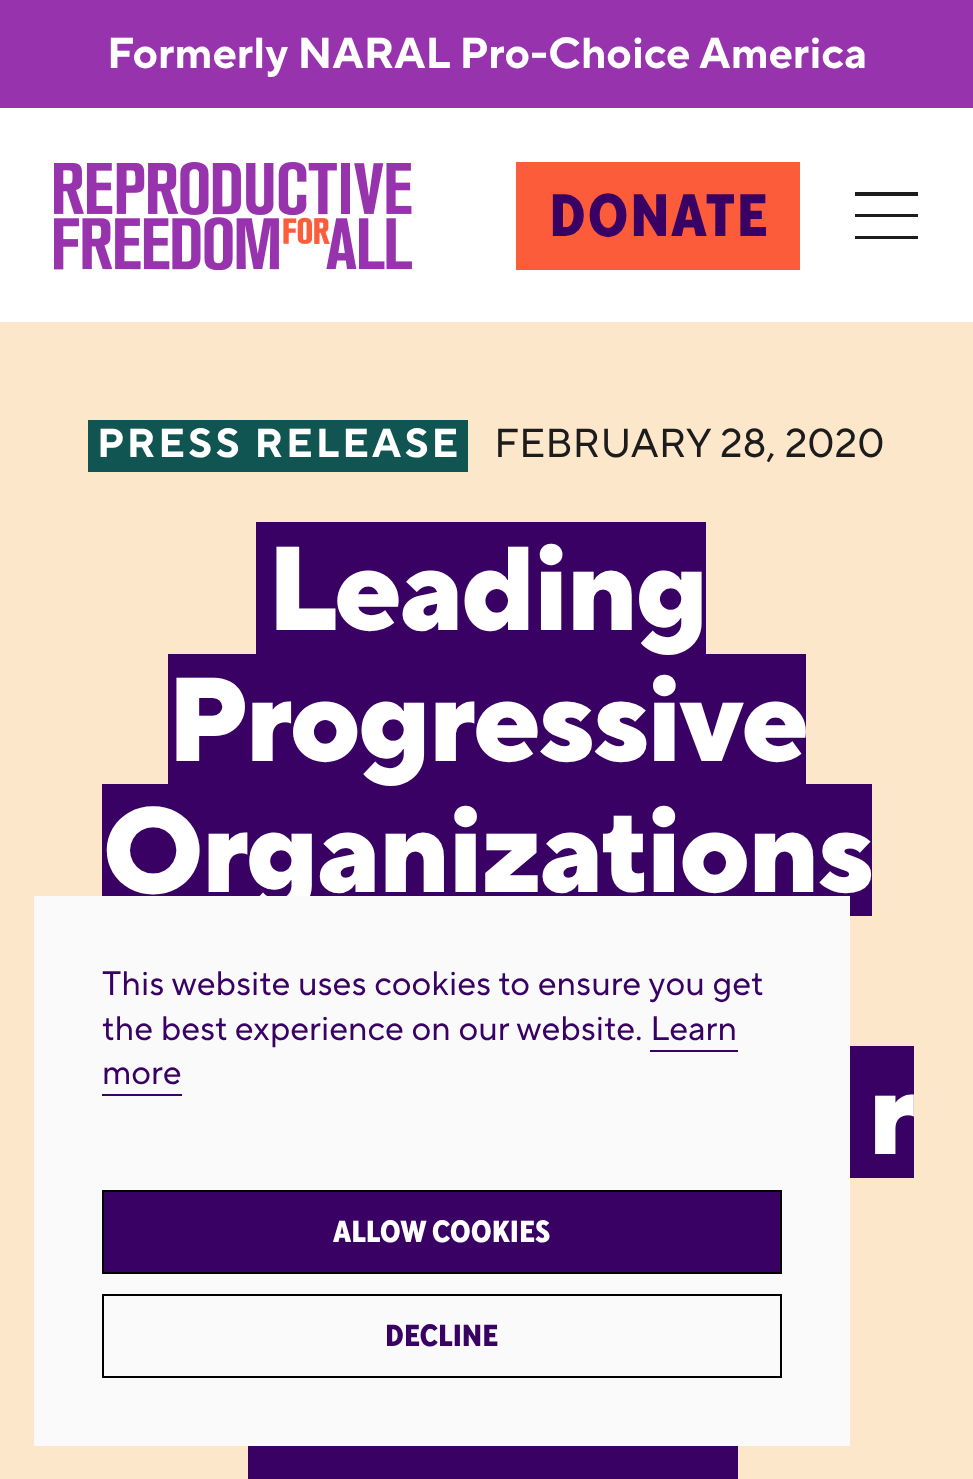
<svg xmlns="http://www.w3.org/2000/svg" width="973" height="1479">
<style>
.a{font:bold 43.25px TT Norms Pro;fill:#fff}
.b{font:800 59.5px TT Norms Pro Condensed;letter-spacing:1.5px;fill:#390163}
.c{font:bold 40.5px TT Norms Pro;letter-spacing:2.75px;fill:#fff}
.d{font:40.5px TT Norms Pro;fill:#1c1c1c}
.e{font:800 119px TT Norms Pro;letter-spacing:-2.75px;fill:#fff}
.f{font:34px TT Norms Pro;fill:#390163}
.g{font:800 30.5px TT Norms Pro Condensed;fill:#fff}
.h{font:800 30.5px TT Norms Pro Condensed;fill:#390163}
</style>
<rect width="100%" height="100%" fill="#fff"/>
<path fill="#9833ae" d="M0 0h973v108H0z"/>
<image href="1.png" x="54" y="162" width="358" height="108"/>
<path fill="#fd5c3b" d="M516 162h284v108H516z"/>
<path fill="#1c1c1c" d="M918 192v4h-63v-4zm-63 25h63v-3h-63zm0 22h63v-3h-63z"/>
<path fill="#fce7cb" d="M0 322h973v1157H0z"/>
<path fill="#105551" d="M88 420h380v52H88z"/>
<path fill="#390163" d="M256 522h450v132H256z"/>
<path fill="#390163" d="M168 654h638v130H168z"/>
<path fill="#390163" d="M102 784h770v132H102z"/>
<path fill="#390163" d="M850 1046h64v132H850z"/>
<path fill="#390163" d="M248 1446h490v33H248z"/>
<text class="a" x="107" y="68">Formerly NARAL Pro-Choice America</text>
<text class="b" x="549" y="236">DONATE</text>
<text class="c" x="97" y="457">PRESS RELEASE</text>
<text class="d" x="494" y="457">FEBRUARY 28, 2020</text>
<text class="e" x="267" y="630">Leading</text>
<text class="e" x="167" y="761">Progressive</text>
<text class="e" x="102" y="892">Organizations</text>
<text class="e" x="868" y="1154">r</text>
<path fill="#fafafa" d="M34 896h816v550H34z"/>
<text class="f" x="102" y="995">This website uses cookies to ensure you get</text>
<text class="f" x="102" y="1040">the best experience on our website. Learn</text>
<text class="f" x="102" y="1084">more</text>
<path fill="#390163" d="M650 1050h88v2H650z"/>
<path fill="#390163" d="M102 1094h80v2H102z"/>
<path fill="#390163" stroke="#000" stroke-width="2" d="M103 1191h678v82H103z"/>
<text class="g" x="333" y="1242">ALLOW COOKIES</text>
<path fill="none" stroke="#000" stroke-width="2" d="M103 1295h678v82H103z"/>
<text class="h" x="385" y="1346">DECLINE</text>
</svg>
